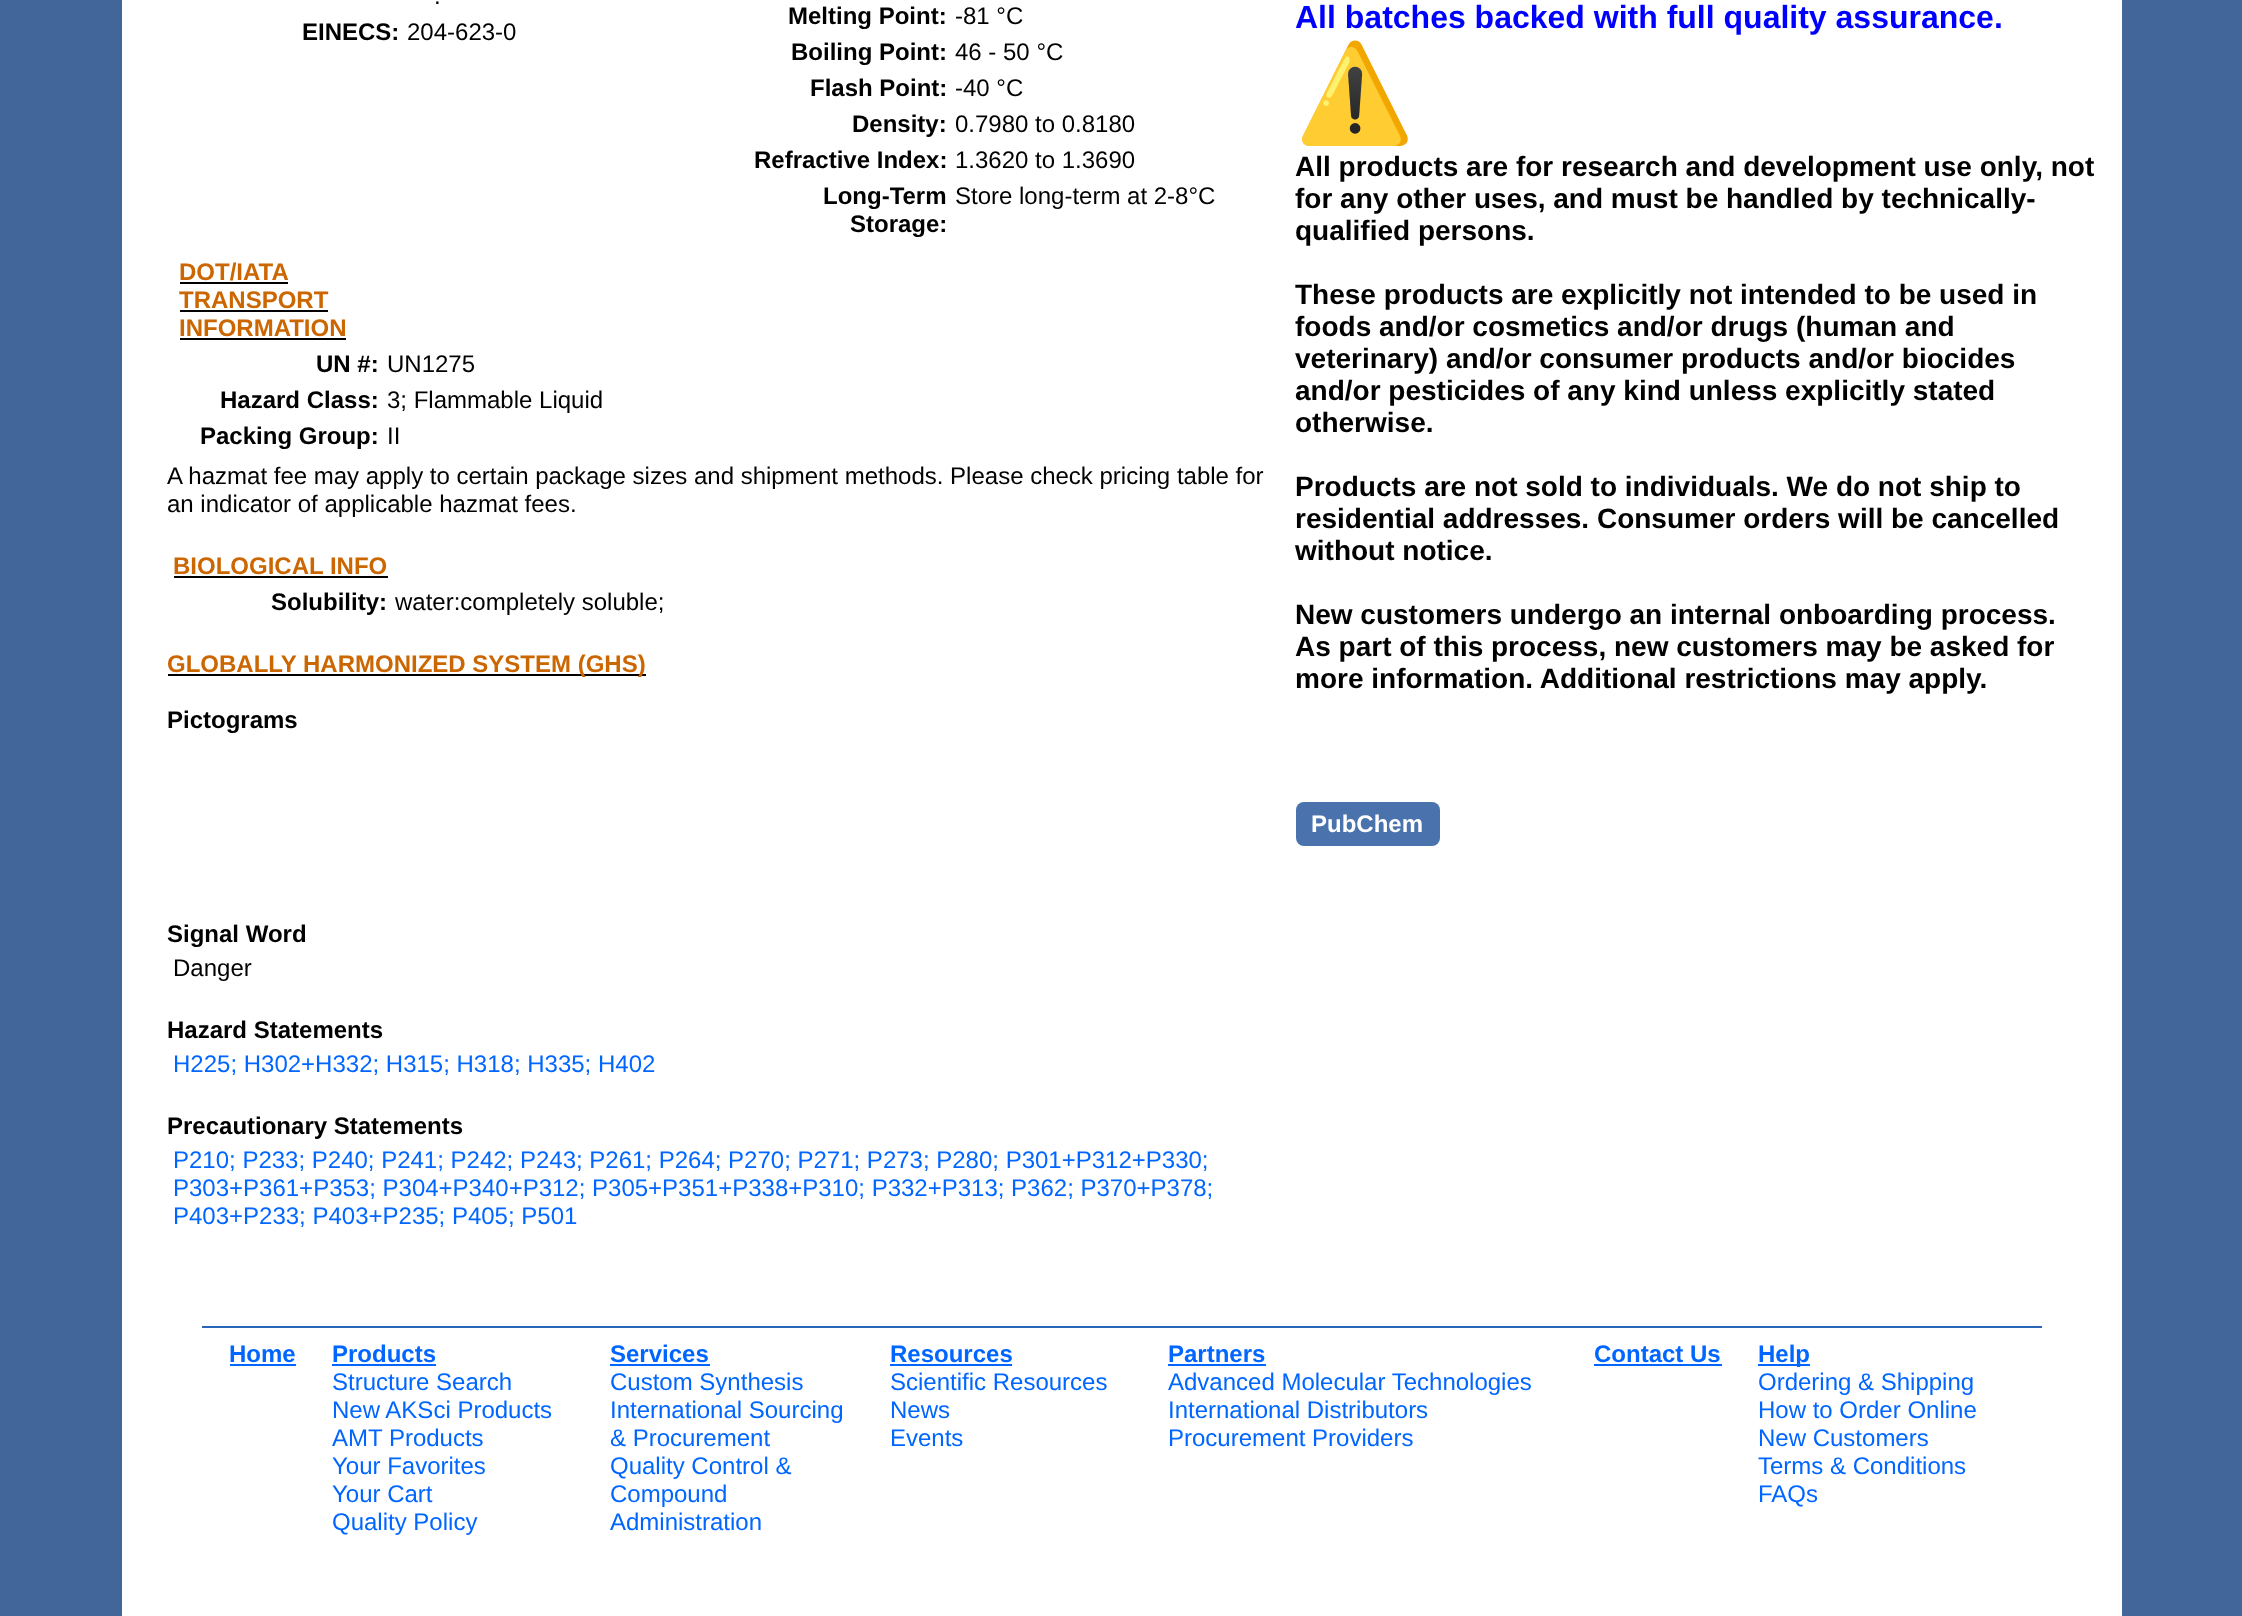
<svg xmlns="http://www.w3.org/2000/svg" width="2242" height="1616">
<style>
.a{font:24px Liberation Sans;fill:#000}
.b{font:bold 24px Liberation Sans;fill:#000}
.c{font:bold 24px Liberation Sans;fill:#c60}
.d{font:24px Liberation Sans;fill:#06f}
.e{font:bold 32px Liberation Sans;fill:#00f}
.f{font:bold 96px Noto Color Emoji;fill:#00f}
.g{font:bold 28px Liberation Sans;fill:#000}
.h{font:bold 24px Liberation Sans;fill:#fff}
.i{font:bold 24px Liberation Sans;fill:#06f}
</style>
<rect width="100%" height="100%" fill="#426699"/>
<path fill="#fff" d="M122 0h2000v1616H122z"/>
<path fill="#000" d="M180 282h108v2H180z"/>
<path fill="#000" d="M180 310h148v2H180z"/>
<path fill="#000" d="M180 338h166v2H180z"/>
<path fill="#000" d="M174 576h214v2H174z"/>
<path fill="#000" d="M168 674h478v2H168z"/>
<rect fill="#4a72ac" x="1296" y="802" width="144" height="44" rx="8"/>
<path fill="#2966b8" d="M202 1326h1840v2H202z"/>
<path fill="#06f" d="M230 1364h66v2H230z"/>
<path fill="#06f" d="M332 1364h104v2H332z"/>
<path fill="#06f" d="M610 1364h100v2H610z"/>
<path fill="#06f" d="M890 1364h122v2H890z"/>
<path fill="#06f" d="M1168 1364h98v2H1168z"/>
<path fill="#06f" d="M1594 1364h128v2H1594z"/>
<path fill="#06f" d="M1758 1364h52v2H1758z"/>
<text class="a" x="434" y="4">.</text>
<text class="b" x="302" y="40">EINECS:</text>
<text class="a" x="407" y="40">204-623-0</text>
<text class="b" x="788" y="24">Melting Point:</text>
<text class="a" x="955" y="24">-81 °C</text>
<text class="b" x="791" y="60">Boiling Point:</text>
<text class="a" x="955" y="60">46 - 50 °C</text>
<text class="b" x="810" y="96">Flash Point:</text>
<text class="a" x="955" y="96">-40 °C</text>
<text class="b" x="852" y="132">Density:</text>
<text class="a" x="955" y="132">0.7980 to 0.8180</text>
<text class="b" x="754" y="168">Refractive Index:</text>
<text class="a" x="955" y="168">1.3620 to 1.3690</text>
<text class="b" x="823" y="204">Long-Term</text>
<text class="b" x="850" y="232">Storage:</text>
<text class="a" x="955" y="204">Store long-term at 2-8°C</text>
<text class="c" x="179" y="280">DOT/IATA</text>
<text class="c" x="179" y="308">TRANSPORT</text>
<text class="c" x="179" y="336">INFORMATION</text>
<text class="b" x="316" y="372">UN #:</text>
<text class="a" x="387" y="372">UN1275</text>
<text class="b" x="220" y="408">Hazard Class:</text>
<text class="a" x="387" y="408">3; Flammable Liquid</text>
<text class="b" x="200" y="444">Packing Group:</text>
<text class="a" x="387" y="444">II</text>
<text class="a" x="167" y="484">A hazmat fee may apply to certain package sizes and shipment methods. Please check pricing table for</text>
<text class="a" x="167" y="512">an indicator of applicable hazmat fees.</text>
<text class="c" x="173" y="574">BIOLOGICAL INFO</text>
<text class="b" x="271" y="610">Solubility:</text>
<text class="a" x="395" y="610">water:completely soluble;</text>
<text class="c" x="167" y="672">GLOBALLY HARMONIZED SYSTEM (GHS)</text>
<text class="b" x="167" y="728">Pictograms</text>
<text class="b" x="167" y="942">Signal Word</text>
<text class="a" x="173" y="976">Danger</text>
<text class="b" x="167" y="1038">Hazard Statements</text>
<text class="d" x="173" y="1072">H225; H302+H332; H315; H318; H335; H402</text>
<text class="b" x="167" y="1134">Precautionary Statements</text>
<text class="d" x="173" y="1168">P210; P233; P240; P241; P242; P243; P261; P264; P270; P271; P273; P280; P301+P312+P330;</text>
<text class="d" x="173" y="1196">P303+P361+P353; P304+P340+P312; P305+P351+P338+P310; P332+P313; P362; P370+P378;</text>
<text class="d" x="173" y="1224">P403+P233; P403+P235; P405; P501</text>
<text class="e" x="1295" y="28">All batches backed with full quality assurance.</text>
<text class="f" x="1295" y="126">⚠️</text>
<text class="g" x="1295" y="176">All products are for research and development use only, not</text>
<text class="g" x="1295" y="208">for any other uses, and must be handled by technically-</text>
<text class="g" x="1295" y="240">qualified persons.</text>
<text class="g" x="1295" y="304">These products are explicitly not intended to be used in</text>
<text class="g" x="1295" y="336">foods and/or cosmetics and/or drugs (human and</text>
<text class="g" x="1295" y="368">veterinary) and/or consumer products and/or biocides</text>
<text class="g" x="1295" y="400">and/or pesticides of any kind unless explicitly stated</text>
<text class="g" x="1295" y="432">otherwise.</text>
<text class="g" x="1295" y="496">Products are not sold to individuals. We do not ship to</text>
<text class="g" x="1295" y="528">residential addresses. Consumer orders will be cancelled</text>
<text class="g" x="1295" y="560">without notice.</text>
<text class="g" x="1295" y="624">New customers undergo an internal onboarding process.</text>
<text class="g" x="1295" y="656">As part of this process, new customers may be asked for</text>
<text class="g" x="1295" y="688">more information. Additional restrictions may apply.</text>
<text class="h" x="1311" y="832">PubChem</text>
<text class="i" x="229" y="1362">Home</text>
<text class="i" x="332" y="1362">Products</text>
<text class="d" x="332" y="1390">Structure Search</text>
<text class="d" x="332" y="1418">New AKSci Products</text>
<text class="d" x="332" y="1446">AMT Products</text>
<text class="d" x="332" y="1474">Your Favorites</text>
<text class="d" x="332" y="1502">Your Cart</text>
<text class="d" x="332" y="1530">Quality Policy</text>
<text class="i" x="610" y="1362">Services</text>
<text class="d" x="610" y="1390">Custom Synthesis</text>
<text class="d" x="610" y="1418">International Sourcing</text>
<text class="d" x="610" y="1446">&amp; Procurement</text>
<text class="d" x="610" y="1474">Quality Control &amp;</text>
<text class="d" x="610" y="1502">Compound</text>
<text class="d" x="610" y="1530">Administration</text>
<text class="i" x="890" y="1362">Resources</text>
<text class="d" x="890" y="1390">Scientific Resources</text>
<text class="d" x="890" y="1418">News</text>
<text class="d" x="890" y="1446">Events</text>
<text class="i" x="1168" y="1362">Partners</text>
<text class="d" x="1168" y="1390">Advanced Molecular Technologies</text>
<text class="d" x="1168" y="1418">International Distributors</text>
<text class="d" x="1168" y="1446">Procurement Providers</text>
<text class="i" x="1594" y="1362">Contact Us</text>
<text class="i" x="1758" y="1362">Help</text>
<text class="d" x="1758" y="1390">Ordering &amp; Shipping</text>
<text class="d" x="1758" y="1418">How to Order Online</text>
<text class="d" x="1758" y="1446">New Customers</text>
<text class="d" x="1758" y="1474">Terms &amp; Conditions</text>
<text class="d" x="1758" y="1502">FAQs</text>
</svg>
